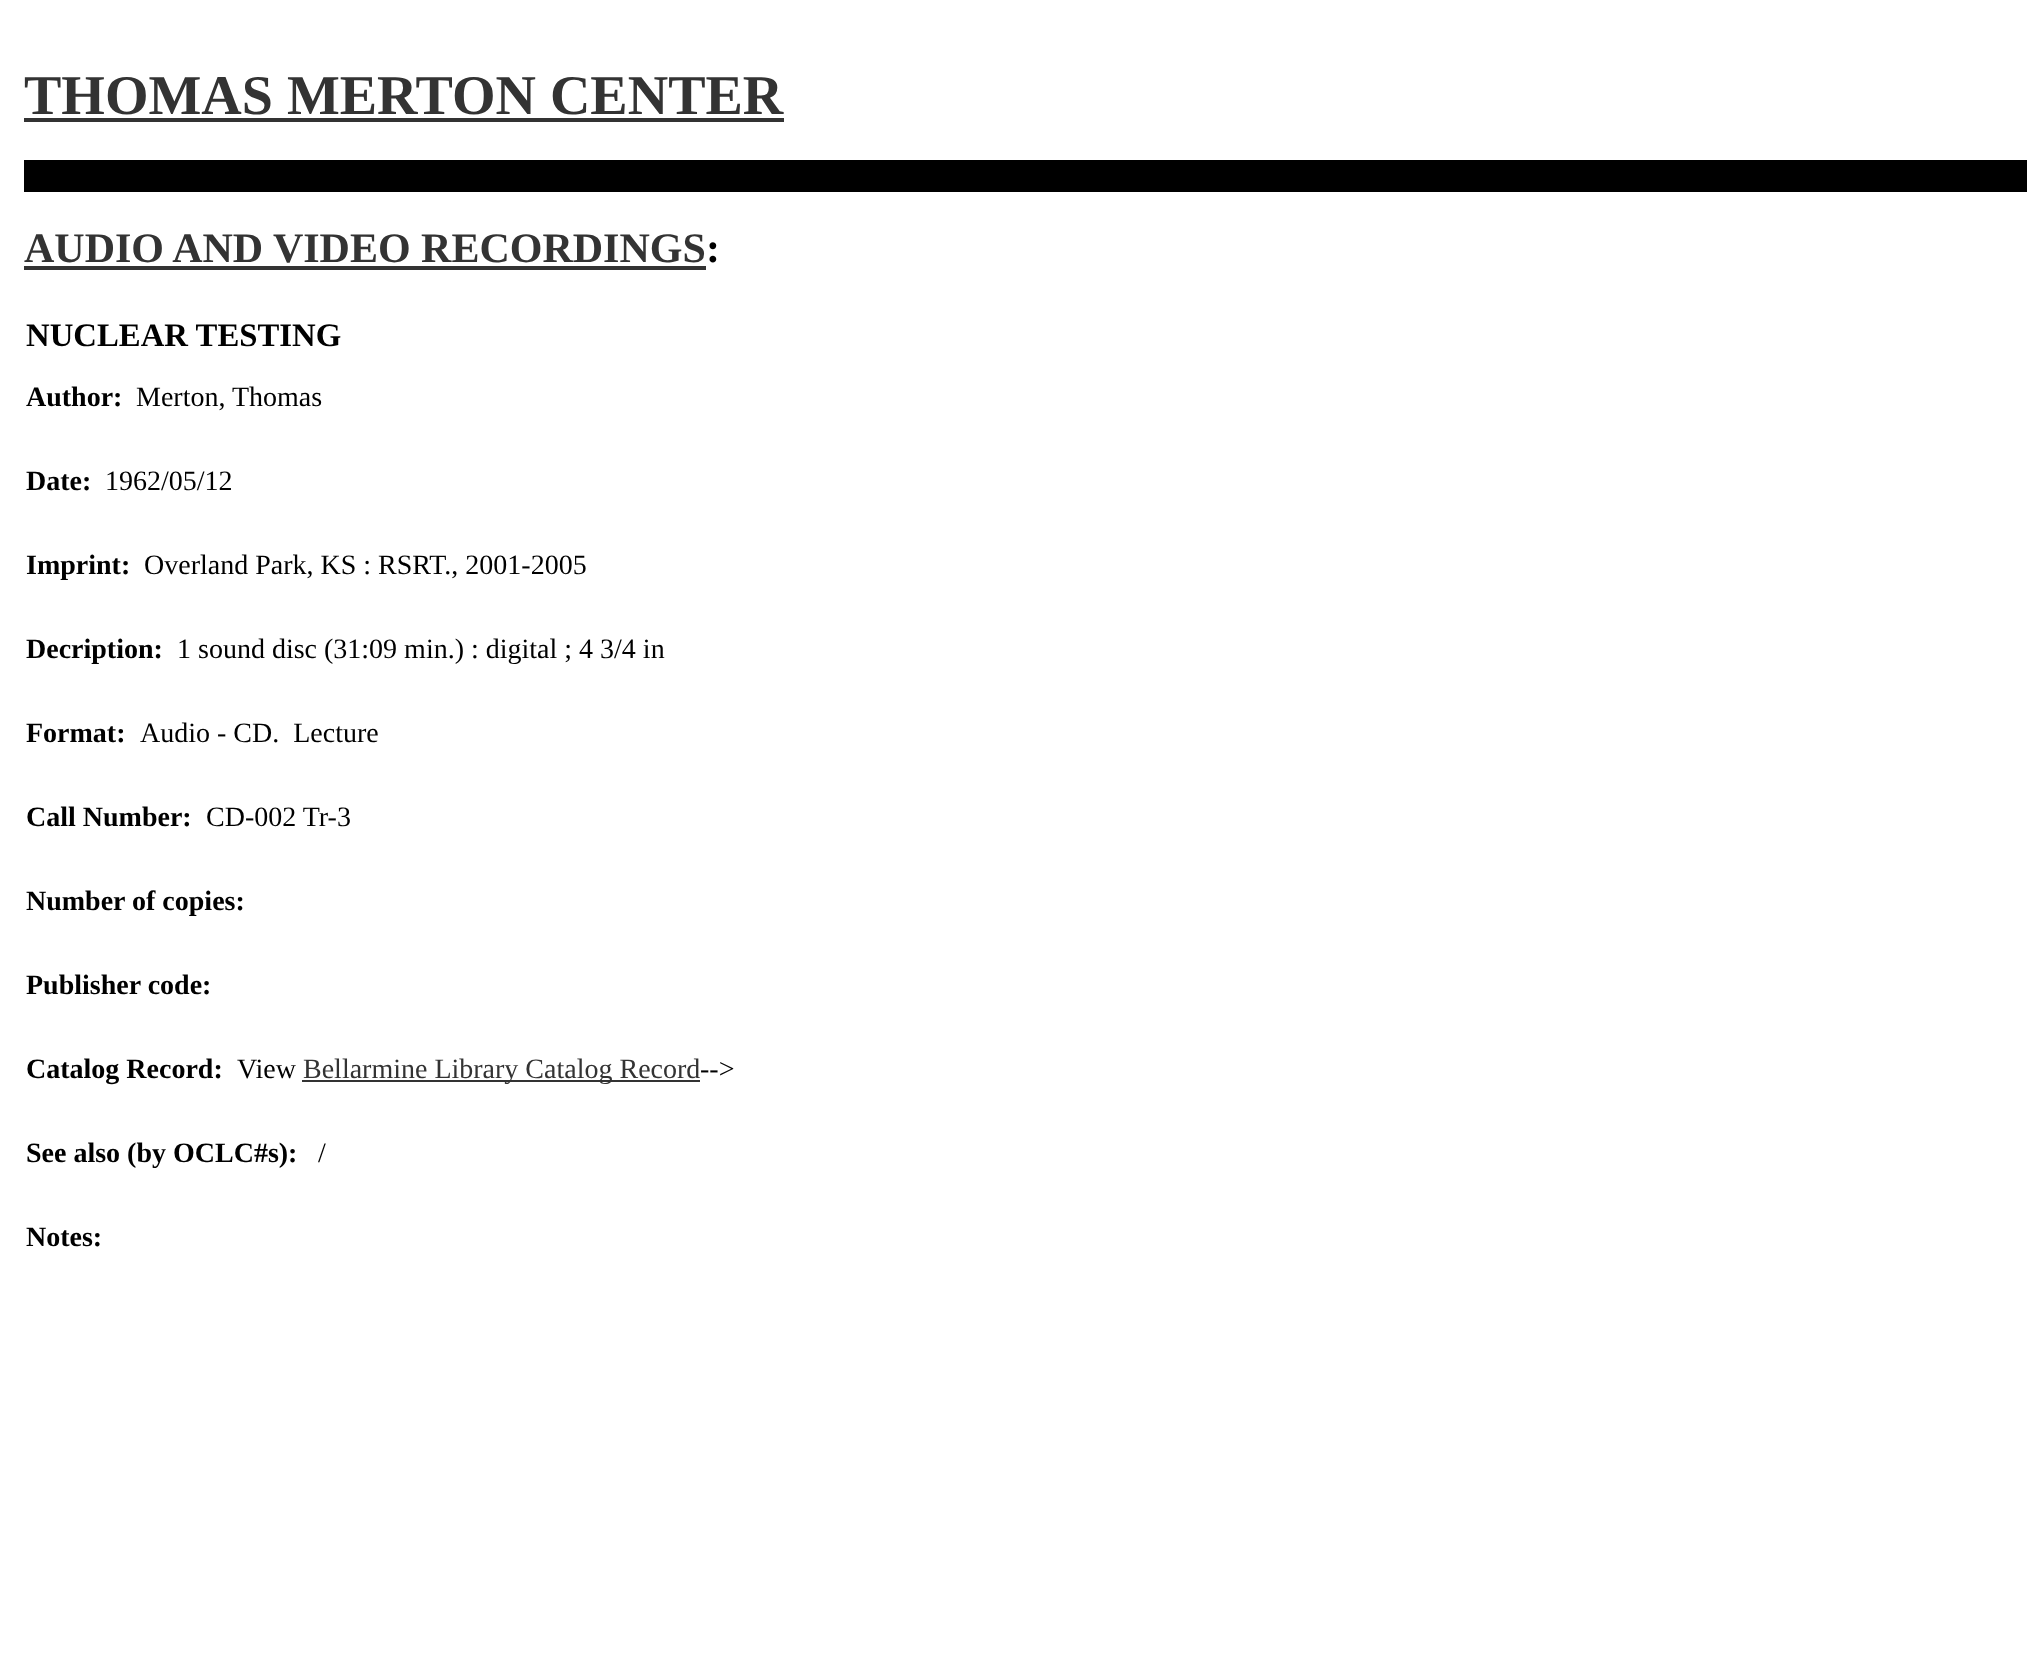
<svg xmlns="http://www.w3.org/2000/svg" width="2027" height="1668">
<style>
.a{font:bold 56px Liberation Serif;fill:#333}
.b{font:bold 42px Liberation Serif;fill:#333}
.c{font:bold 42px Liberation Serif;fill:#000}
.d{font:bold 32.75px Liberation Serif;fill:#000}
.e{font:bold 28px Liberation Serif;fill:#000}
.f{font:28px Liberation Serif;fill:#000}
.g{font:28px Liberation Serif;fill:#333}
</style>
<rect width="100%" height="100%" fill="#fff"/>
<path fill="#333" d="M24 118h760v4H24z"/>
<path fill="#000" d="M24 160h2003v32H24z"/>
<path fill="#333" d="M24 266h682v4H24z"/>
<path fill="#333" d="M302 1080h398v2H302z"/>
<text class="a" x="24" y="114">THOMAS MERTON CENTER</text>
<text class="b" x="24" y="262">AUDIO AND VIDEO RECORDINGS</text>
<text class="c" x="706" y="262">:</text>
<text class="d" x="26" y="346">NUCLEAR TESTING</text>
<text class="e" x="26" y="406">Author:</text>
<text class="f" x="136" y="406">Merton, Thomas</text>
<text class="e" x="26" y="490">Date:</text>
<text class="f" x="105" y="490">1962/05/12</text>
<text class="e" x="26" y="574">Imprint:</text>
<text class="f" x="144" y="574">Overland Park, KS : RSRT., 2001-2005</text>
<text class="e" x="26" y="658">Decription:</text>
<text class="f" x="177" y="658">1 sound disc (31:09 min.) : digital ; 4 3/4 in</text>
<text class="e" x="26" y="742">Format:</text>
<text class="f" xml:space="preserve" x="140" y="742">Audio - CD.  Lecture</text>
<text class="e" x="26" y="826">Call Number:</text>
<text class="f" x="206" y="826">CD-002 Tr-3</text>
<text class="e" x="26" y="910">Number of copies:</text>
<text class="e" x="26" y="994">Publisher code:</text>
<text class="e" x="26" y="1078">Catalog Record:</text>
<text class="f" x="237" y="1078">View</text>
<text class="g" x="303" y="1078">Bellarmine Library Catalog Record</text>
<text class="f" x="700" y="1078">--&gt;</text>
<text class="e" x="26" y="1162">See also (by OCLC#s):</text>
<text class="f" x="318" y="1162">/</text>
<text class="e" x="26" y="1246">Notes:</text>
</svg>
